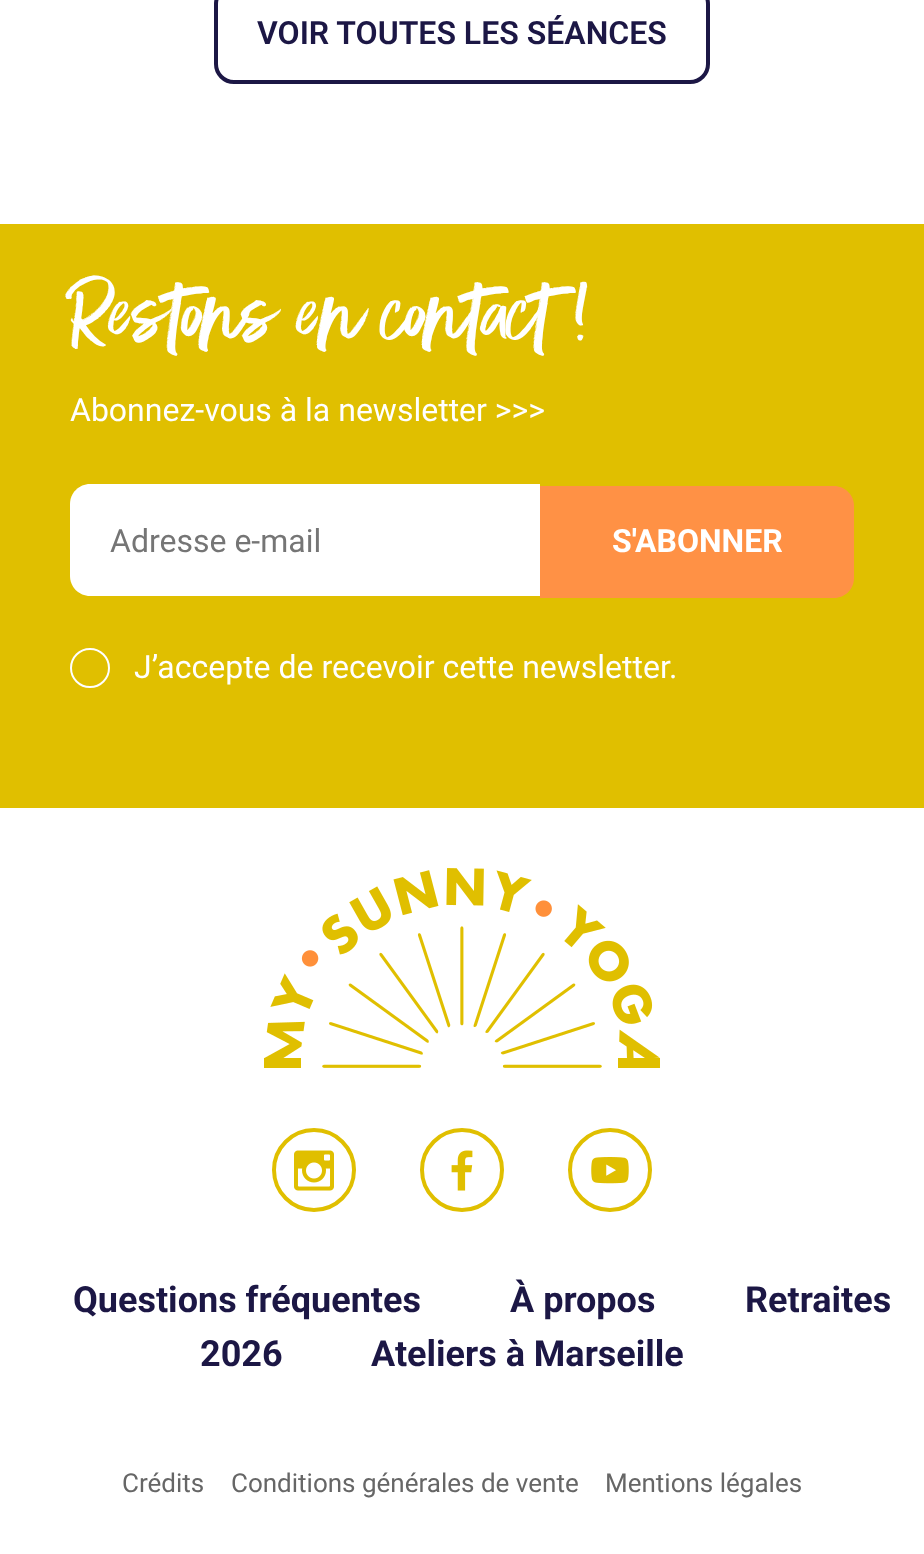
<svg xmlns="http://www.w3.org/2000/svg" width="924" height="1554">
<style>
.a{font:600 32px Roboto;fill:#1c1745}
.b{font:94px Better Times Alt;letter-spacing:-2px;fill:#fff}
.c{font:32px Roboto;fill:#fff}
.d{font:32px Roboto;fill:#757575}
.e{font:bold 32px Roboto;fill:#fff}
.f{font:bold 36px Roboto;fill:#1c1745}
.g{font:26px Roboto;fill:#666}
</style>
<rect width="100%" height="100%" fill="#fff"/>
<rect fill="none" stroke="#1c1745" stroke-width="4" x="216" y="-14" width="492" height="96" rx="18"/>
<path fill="#e0bf00" d="M0 224h924v584H0z"/>
<path fill="#fff" d="M90 484h450v112h-450c-11 0-20-9-20-20v-72c0-11 9-20 20-20z"/>
<path fill="#ff9145" d="M540 486h294c11 0 20 9 20 20v72c0 11-9 20-20 20h-294z"/>
<circle fill="none" stroke="#fff" stroke-width="2" cx="90" cy="668" r="19"/>
<image href="1.png" x="264" y="868" width="396" height="200"/>
<circle fill="none" stroke="#e0bf00" stroke-width="4" cx="314" cy="1170" r="40"/>
<image href="2.png" x="294" y="1150" width="40" height="41"/>
<circle fill="none" stroke="#e0bf00" stroke-width="4" cx="462" cy="1170" r="40"/>
<image href="3.png" x="451" y="1150" width="22" height="41"/>
<circle fill="none" stroke="#e0bf00" stroke-width="4" cx="610" cy="1170" r="40"/>
<image href="4.png" x="591" y="1157" width="38" height="27"/>
<text class="a" x="257" y="44">VOIR TOUTES LES SÉANCES</text>
<text class="b" x="70" y="348">Restons en contact !</text>
<text class="c" x="70" y="421">Abonnez-vous à la newsletter &gt;&gt;&gt;</text>
<text class="d" x="110" y="552">Adresse e-mail</text>
<text class="e" x="612" y="552">S'ABONNER</text>
<text class="c" x="134" y="678">J’accepte de recevoir cette newsletter.</text>
<text class="f" x="73" y="1312">Questions fréquentes</text>
<text class="f" x="510" y="1312">À propos</text>
<text class="f" x="745" y="1312">Retraites</text>
<text class="f" x="200" y="1366">2026</text>
<text class="f" x="371" y="1366">Ateliers à Marseille</text>
<text class="g" x="122" y="1492">Crédits</text>
<text class="g" x="231" y="1492">Conditions générales de vente</text>
<text class="g" x="605" y="1492">Mentions légales</text>
</svg>
